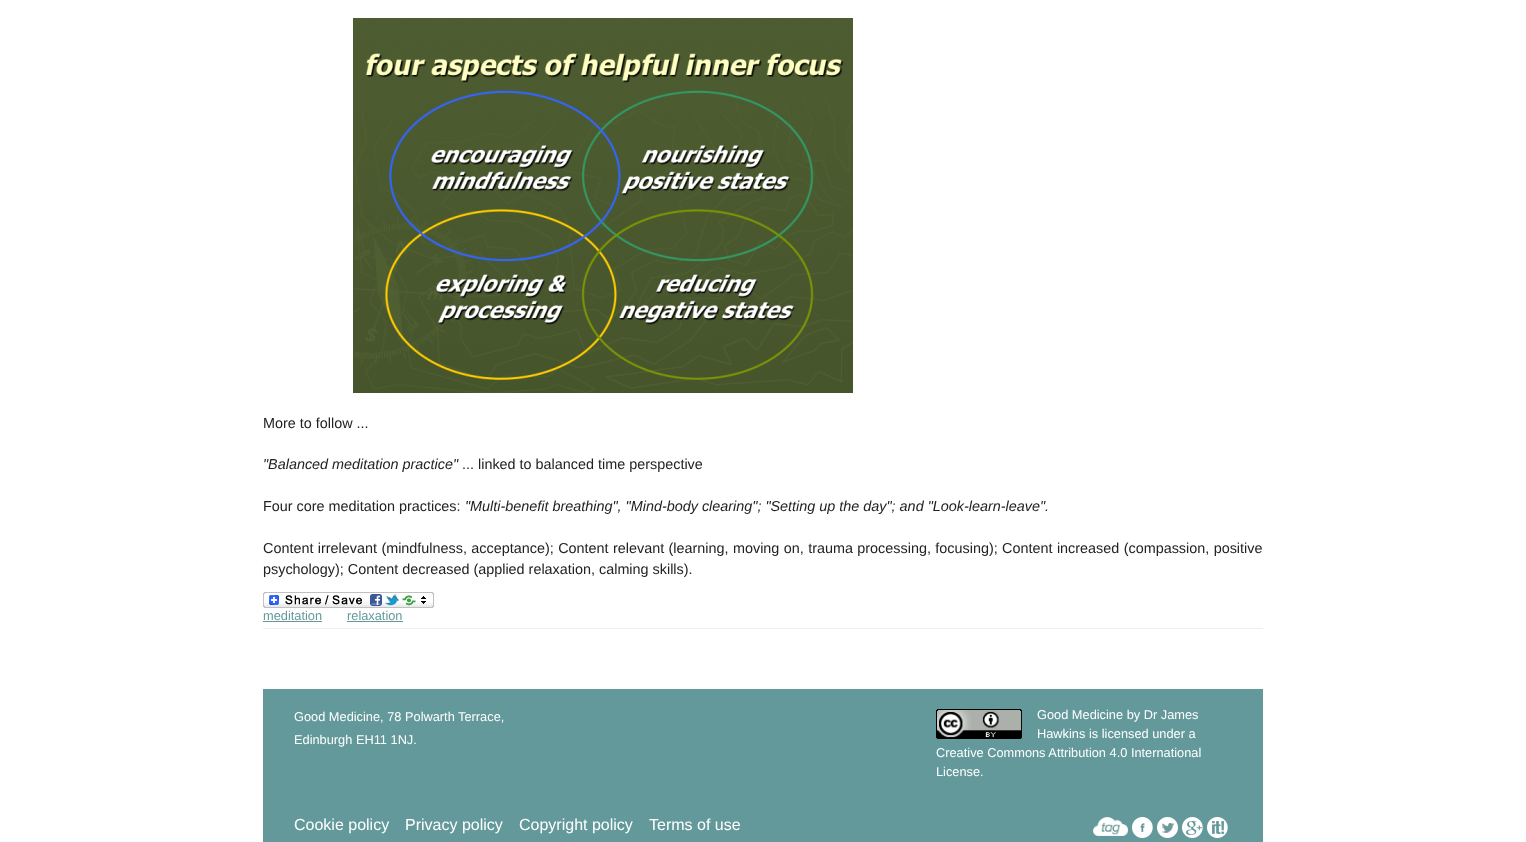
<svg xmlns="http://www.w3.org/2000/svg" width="1526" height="842">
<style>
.a{font:14.4px Liberation Sans;fill:#222}
.b{font:italic 14.4px Liberation Sans;fill:#222}
.c{font:12.8px Liberation Sans;fill:#63999a}
.d{font:12.8px Liberation Sans;fill:#fff}
.e{font:16px Liberation Sans;fill:#fff}
</style>
<rect width="100%" height="100%" fill="#fff"/>
<path fill="#efefef" d="M263 628h1000v1H263z"/>
<image href="1.png" x="353" y="18" width="500" height="375"/>
<image href="2.png" x="263" y="592" width="171" height="16"/>
<path fill="#63999a" d="M263 621h59v1H263z"/>
<path fill="#63999a" d="M347 621h56v1H347z"/>
<path fill="#63999a" d="M263 689h1000v153H263z"/>
<image href="3.png" x="936" y="709" width="86" height="30"/>
<image href="4.png" x="1093" y="817" width="35" height="19"/>
<image href="5.png" x="1132" y="817" width="21" height="21"/>
<image href="6.png" x="1157" y="817" width="21" height="21"/>
<image href="7.png" x="1182" y="817" width="21" height="21"/>
<image href="8.png" x="1207" y="817" width="21" height="21"/>
<text class="a" x="263" y="428">More to follow ...</text>
<text class="b" x="263" y="469">"Balanced meditation practice"</text>
<text class="a" x="462" y="469">... linked to balanced time perspective</text>
<text class="a" x="263" y="511">Four core meditation practices:</text>
<text class="b" x="465" y="511">"Multi-benefit breathing", "Mind-body clearing"; "Setting up the day"; and "Look-learn-leave".</text>
<text class="a" x="263" y="553" word-spacing="0.4">Content irrelevant (mindfulness, acceptance); Content relevant (learning, moving on, trauma processing, focusing); Content increased (compassion, positive</text>
<text class="a" x="263" y="574">psychology); Content decreased (applied relaxation, calming skills).</text>
<text class="c" x="263" y="620">meditation</text>
<text class="c" x="347" y="620">relaxation</text>
<text class="d" x="294" y="721">Good Medicine, 78 Polwarth Terrace,</text>
<text class="d" x="294" y="744">Edinburgh EH11 1NJ.</text>
<text class="d" x="1037" y="719">Good Medicine by Dr James</text>
<text class="d" x="1037" y="738">Hawkins is licensed under a</text>
<text class="d" x="936" y="757">Creative Commons Attribution 4.0 International</text>
<text class="d" x="936" y="776">License.</text>
<text class="e" x="294" y="830">Cookie policy</text>
<text class="e" x="405" y="830">Privacy policy</text>
<text class="e" x="519" y="830">Copyright policy</text>
<text class="e" x="649" y="830">Terms of use</text>
</svg>
